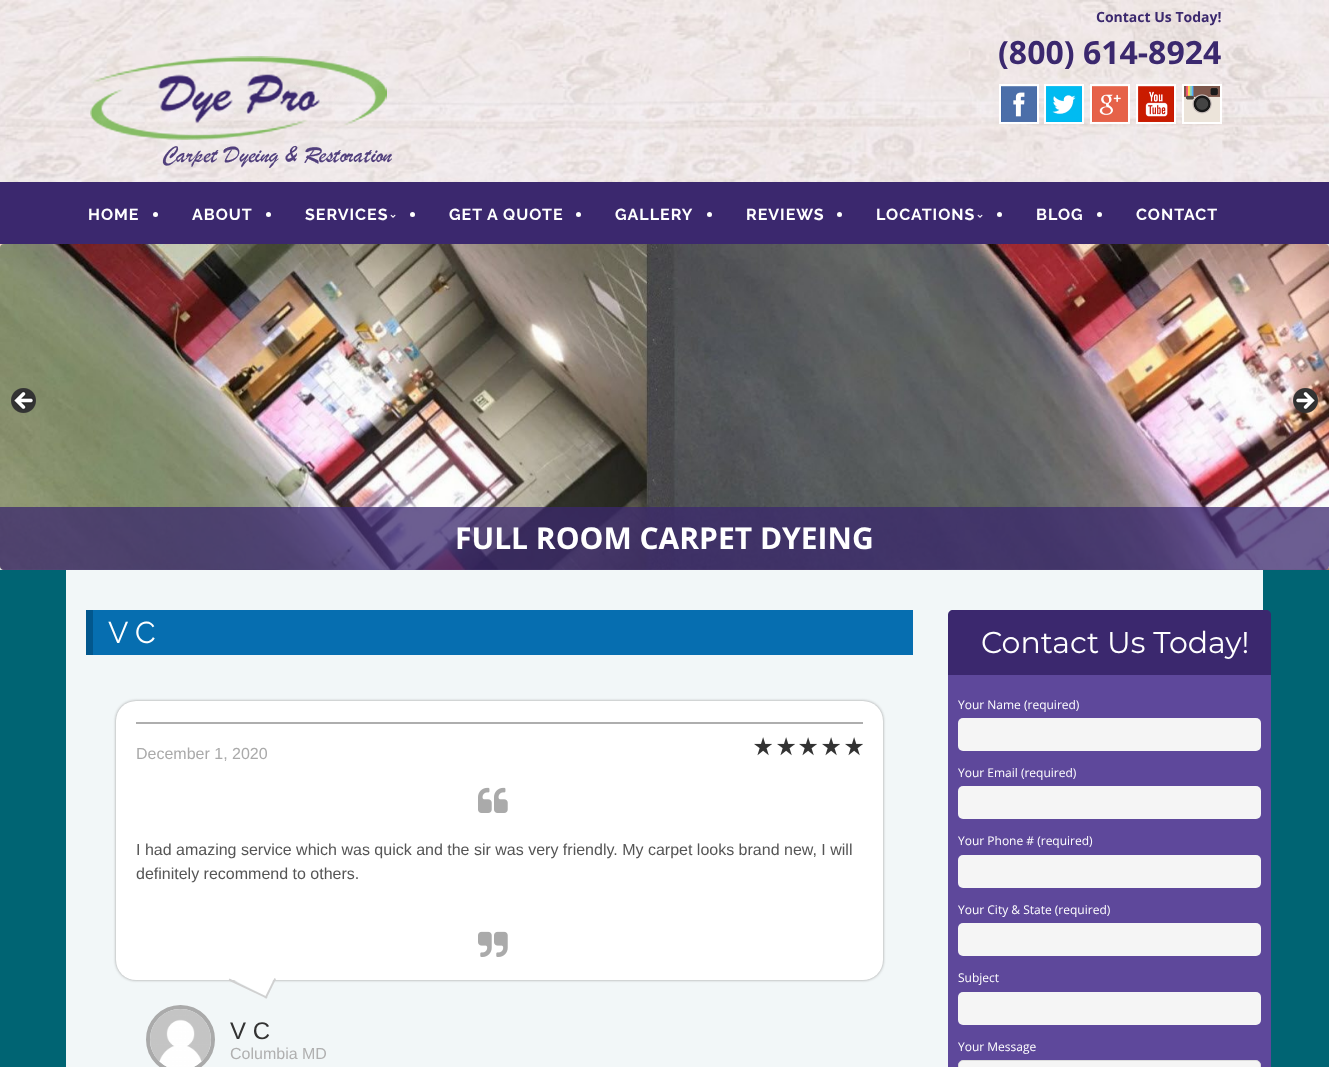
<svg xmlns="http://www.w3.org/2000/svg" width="1329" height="1067">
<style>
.a{font:bold 14px Open Sans;fill:#3b286e}
.b{font:bold 32px Open Sans;fill:#3b286e}
.c{font:bold 16px Raleway;letter-spacing:1px;fill:#fff}
.d{font:bold 30px Open Sans;fill:#fff}
.e{font:30px Raleway;fill:#fff}
.f{font:16px Liberation Sans;fill:#aaa}
.g{font:16px Liberation Sans;fill:#555}
.h{font:24px Liberation Sans;fill:#333}
.i{font:16px Liberation Sans;fill:#b0b0b0}
.j{font:30px Montserrat;fill:#fff}
.k{font:12px Open Sans;fill:#fff}
</style>
<rect width="100%" height="100%" fill="#fff"/>
<image href="1.png" x="0" y="244" width="1329" height="326"/>
<image href="2.png" x="0" y="0" width="1329" height="182"/>
<path fill="none" stroke="#fff" stroke-width="2" d="M1000 85h38v38H1000z"/>
<path fill="none" stroke="#fff" stroke-width="2" d="M1045 85h38v38H1045z"/>
<path fill="none" stroke="#fff" stroke-width="2" d="M1091 85h38v38H1091z"/>
<path fill="none" stroke="#fff" stroke-width="2" d="M1137 85h38v38H1137z"/>
<path fill="none" stroke="#fff" stroke-width="2" d="M1183 85h38v38H1183z"/>
<image href="3.png" x="1001" y="86" width="36" height="36"/>
<image href="4.png" x="1046" y="86" width="36" height="36"/>
<image href="5.png" x="1092" y="86" width="36" height="36"/>
<image href="6.png" x="1138" y="86" width="36" height="36"/>
<image href="7.png" x="1184" y="86" width="36" height="36"/>
<image href="8.png" x="90" y="56" width="302" height="112"/>
<path fill="#3b286e" d="M0 182h1329v62H0z"/>
<circle fill="#fff" cx="155.5" cy="214.5" r="2.5"/>
<circle fill="#fff" cx="268.5" cy="214.5" r="2.5"/>
<image href="9.png" x="390" y="214" width="6" height="4"/>
<circle fill="#fff" cx="412.5" cy="214.5" r="2.5"/>
<circle fill="#fff" cx="578.5" cy="214.5" r="2.5"/>
<circle fill="#fff" cx="709.5" cy="214.5" r="2.5"/>
<circle fill="#fff" cx="839.5" cy="214.5" r="2.5"/>
<image href="9.png" x="977" y="214" width="6" height="4"/>
<circle fill="#fff" cx="999.5" cy="214.5" r="2.5"/>
<circle fill="#fff" cx="1099.5" cy="214.5" r="2.5"/>
<image href="12.png" x="0" y="244" width="1329" height="326"/>
<image href="10.png" x="11" y="388" width="25" height="25"/>
<image href="11.png" x="1293" y="388" width="25" height="25"/>
<path fill="#3b286ebf" d="M0 507h1329v59c0 2-2 4-4 4h-1321c-2 0-4-2-4-4z"/>
<path fill="#006473" d="M0 570h1329v497H0z"/>
<path fill="#f2f7f8" d="M66 570h1197v497H66z"/>
<path fill="#066eb0" d="M93 610h820v45H93z"/>
<path fill="#02578d" d="M86 610h7v45H86z"/>
<rect fill="#999" filter="blur(1.5px)" x="116" y="701" width="767" height="279" rx="20"/>
<rect fill="#fff" x="116" y="701" width="767" height="279" rx="20"/>
<path fill="#aeaeae" d="M136 722h727v2H136z"/>
<image href="13.png" x="754" y="737" width="18" height="19"/>
<image href="13.png" x="777" y="737" width="18" height="19"/>
<image href="13.png" x="799" y="737" width="18" height="19"/>
<image href="13.png" x="822" y="737" width="18" height="19"/>
<image href="13.png" x="845" y="737" width="18" height="19"/>
<image href="14.png" x="478" y="787" width="30" height="26"/>
<image href="15.png" x="478" y="931" width="30" height="26"/>
<path fill="#fff" d="M238 961l36 17l-8 18l-36-18z"/>
<path fill="#d0d0d0" d="M274.5 978l1.5 1l-9.5 19.5l-2-.5z"/>
<path fill="#d0d0d0" d="M229.5 978.5l38 18.5l-1 1.5l-38-18z"/>
<circle fill="none" stroke="#aaa" stroke-width="4" cx="180.5" cy="1039.5" r="32.5"/>
<image href="16.png" x="150" y="1009" width="61" height="58"/>
<path fill="#5e489b" d="M948 675h323v392H948z"/>
<path fill="#3b286e" d="M953 610h313c3 0 5 2 5 5v60h-323v-60c0-3 2-5 5-5z"/>
<rect fill="#f5f5f5" x="958" y="718" width="303" height="33" rx="5"/>
<rect fill="#f5f5f5" x="958" y="786" width="303" height="33" rx="5"/>
<rect fill="#f5f5f5" x="958" y="855" width="303" height="33" rx="5"/>
<rect fill="#f5f5f5" x="958" y="923" width="303" height="33" rx="5"/>
<rect fill="#f5f5f5" x="958" y="992" width="303" height="33" rx="5"/>
<rect fill="#f5f5f5" stroke="#ddd" x="958.5" y="1060.5" width="302" height="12" rx="4.5"/>
<text class="a" x="1096" y="22">Contact Us Today!</text>
<text class="b" x="998" y="64">(800) 614-8924</text>
<text class="c" x="88" y="220">HOME</text>
<text class="c" x="192" y="220">ABOUT</text>
<text class="c" x="305" y="220">SERVICES</text>
<text class="c" x="449" y="220">GET A QUOTE</text>
<text class="c" x="615" y="220">GALLERY</text>
<text class="c" x="746" y="220">REVIEWS</text>
<text class="c" x="876" y="220">LOCATIONS</text>
<text class="c" x="1036" y="220">BLOG</text>
<text class="c" x="1136" y="220">CONTACT</text>
<text class="d" x="455" y="549">FULL ROOM CARPET DYEING</text>
<text class="e" x="108" y="643">V C</text>
<text class="f" x="136" y="759">December 1, 2020</text>
<text class="g" x="136" y="855">I had amazing service which was quick and the sir was very friendly. My carpet looks brand new, I will</text>
<text class="g" x="136" y="879">definitely recommend to others.</text>
<text class="h" x="230" y="1039">V C</text>
<text class="i" x="230" y="1059">Columbia MD</text>
<text class="j" x="981" y="653">Contact Us Today!</text>
<text class="k" x="958" y="709">Your Name (required)</text>
<text class="k" x="958" y="777">Your Email (required)</text>
<text class="k" x="958" y="845">Your Phone # (required)</text>
<text class="k" x="958" y="914">Your City &amp; State (required)</text>
<text class="k" x="958" y="982">Subject</text>
<text class="k" x="958" y="1051">Your Message</text>
</svg>
